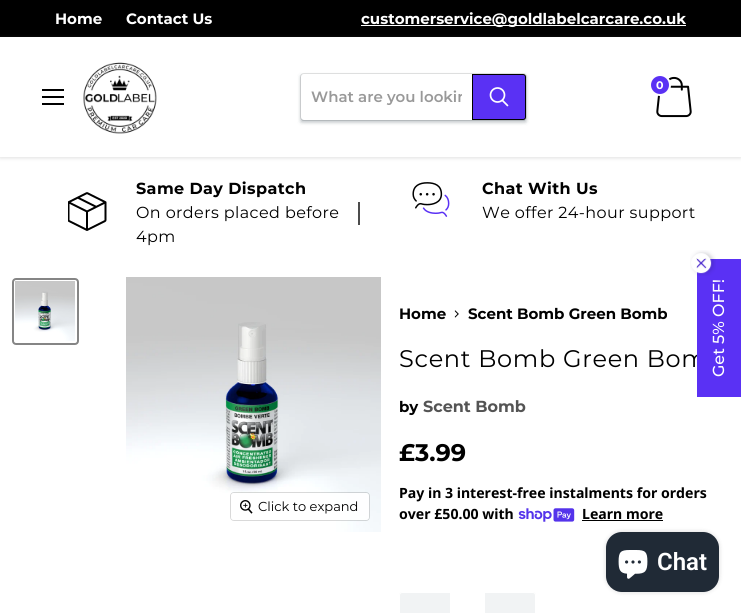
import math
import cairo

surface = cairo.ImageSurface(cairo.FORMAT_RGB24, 741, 613)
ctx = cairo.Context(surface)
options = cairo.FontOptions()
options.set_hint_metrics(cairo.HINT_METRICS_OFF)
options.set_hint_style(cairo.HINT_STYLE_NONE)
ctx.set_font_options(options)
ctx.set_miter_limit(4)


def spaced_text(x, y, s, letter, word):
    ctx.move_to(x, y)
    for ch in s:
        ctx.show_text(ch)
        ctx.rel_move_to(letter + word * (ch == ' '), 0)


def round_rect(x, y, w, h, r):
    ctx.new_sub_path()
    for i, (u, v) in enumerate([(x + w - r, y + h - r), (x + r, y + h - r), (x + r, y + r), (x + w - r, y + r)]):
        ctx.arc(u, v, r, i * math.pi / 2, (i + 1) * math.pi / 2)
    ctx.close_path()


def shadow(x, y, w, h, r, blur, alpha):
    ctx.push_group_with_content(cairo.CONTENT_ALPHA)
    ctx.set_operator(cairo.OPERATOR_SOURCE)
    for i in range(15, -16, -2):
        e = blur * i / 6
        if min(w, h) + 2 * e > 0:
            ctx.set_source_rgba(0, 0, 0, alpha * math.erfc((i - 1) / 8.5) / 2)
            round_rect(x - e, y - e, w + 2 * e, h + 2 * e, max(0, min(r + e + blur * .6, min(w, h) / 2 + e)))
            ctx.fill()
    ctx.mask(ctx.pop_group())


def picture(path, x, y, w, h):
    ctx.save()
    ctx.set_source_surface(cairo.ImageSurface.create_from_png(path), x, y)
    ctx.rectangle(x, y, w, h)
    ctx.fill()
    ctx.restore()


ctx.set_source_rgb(1, 1, 1)
ctx.paint()
ctx.set_source_rgb(0, 0, 0)
ctx.rectangle(0, 0, 741, 37)
ctx.fill()
ctx.select_font_face("Montserrat Thin")
ctx.set_font_size(15)
ctx.set_source_rgb(1, 1, 1)
ctx.move_to(55, 24)
ctx.show_text("Home")
ctx.move_to(126, 24)
ctx.show_text("Contact Us")
ctx.rectangle(361, 25, 325, 1)
ctx.fill()
ctx.move_to(361, 24)
ctx.show_text("customerservice@goldlabelcarcare.co.uk")
ctx.save()
ctx.set_fill_rule(cairo.FILL_RULE_EVEN_ODD)
ctx.new_path()
ctx.move_to(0, 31)
ctx.line_to(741, 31)
ctx.line_to(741, 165)
ctx.line_to(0, 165)
ctx.close_path()
ctx.move_to(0, 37)
ctx.line_to(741, 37)
ctx.line_to(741, 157)
ctx.line_to(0, 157)
ctx.close_path()
ctx.clip()
ctx.set_source_rgb(0.502, 0.502, 0.502)
shadow(0, 38, 741, 120, 0, 2, 0.25)
ctx.restore()
picture("img1.png", 656, 76, 36, 42)
ctx.set_source_rgb(0.353, 0.192, 0.957)
ctx.arc(660, 85, 10, 0, 2 * math.pi)
ctx.fill_preserve()
ctx.set_source_rgb(1, 1, 1)
ctx.stroke()
ctx.set_font_size(11)
ctx.move_to(656, 89)
ctx.show_text("0")
ctx.set_source_rgb(0, 0, 0)
ctx.rectangle(42, 89, 22, 2)
ctx.fill()
ctx.rectangle(42, 96, 22, 2)
ctx.fill()
ctx.rectangle(42, 103, 22, 2)
ctx.fill()
picture("img2.png", 83, 62, 74, 72)
ctx.set_source_rgb(0.502, 0.502, 0.502)
shadow(300, 75, 227, 48, 4, 1.5, 0.11)
round_rect(300.5, 73.5, 226, 47, 3.5)
ctx.set_source_rgba(0.502, 0.502, 0.502, 0.2)
ctx.set_line_width(1)
ctx.stroke()
ctx.set_source_rgb(0.031, 0.137, 0.188)
shadow(301, 76, 225, 46, 0, 2, 0.24)
ctx.set_source_rgb(1, 1, 1)
ctx.new_path()
ctx.move_to(304, 74)
ctx.line_to(472, 74)
ctx.line_to(472, 120)
ctx.line_to(304, 120)
ctx.curve_to(302.5, 120, 301, 118.5, 301, 117)
ctx.line_to(301, 77)
ctx.curve_to(301, 75.5, 302.5, 74, 304, 74)
ctx.close_path()
ctx.fill()
ctx.save()
ctx.rectangle(311, 87, 151, 19)
ctx.clip()
ctx.select_font_face("Montserrat SemiBold")
ctx.set_font_size(15)
ctx.set_source_rgb(0.6, 0.6, 0.6)
ctx.move_to(311, 102)
ctx.show_text("What are you lookin")
ctx.restore()
ctx.set_source_rgb(0.353, 0.192, 0.957)
ctx.new_path()
ctx.move_to(472.5, 74.5)
ctx.line_to(523, 74.5)
ctx.curve_to(524.5, 74.5, 525.5, 75.5, 525.5, 77)
ctx.line_to(525.5, 117)
ctx.curve_to(525.5, 118.5, 524.5, 119.5, 523, 119.5)
ctx.line_to(472.5, 119.5)
ctx.close_path()
ctx.fill_preserve()
ctx.set_source_rgb(0, 0, 0)
ctx.stroke()
ctx.new_path()
ctx.move_to(507.5, 105.5)
ctx.line_to(502.5, 100.5)
ctx.set_source_rgb(1, 1, 1)
ctx.set_line_width(1.7)
ctx.set_line_cap(cairo.LINE_CAP_ROUND)
ctx.stroke()
ctx.arc(497.5, 95, 7, 0, 2 * math.pi)
ctx.set_line_cap(cairo.LINE_CAP_BUTT)
ctx.stroke()
picture("img3.png", 68, 192, 39, 39)
ctx.set_font_size(16)
ctx.set_source_rgb(0, 0, 0)
spaced_text(136, 194, "Same Day Dispatch", 0.4, 0)
ctx.select_font_face("Montserrat")
spaced_text(136, 218, "On orders placed before", 0.4, 0)
spaced_text(136, 242, "4pm", 0.4, 0)
ctx.new_path()
ctx.move_to(359, 202)
ctx.line_to(359, 225)
ctx.set_line_width(1.4)
ctx.stroke()
picture("img4.png", 412, 182, 38, 35)
ctx.select_font_face("Montserrat Thin")
spaced_text(482, 194, "Chat With Us", 0.4, 0)
ctx.select_font_face("Montserrat")
spaced_text(482, 218, "We offer 24-hour support", 0.4, 0)
round_rect(13, 279, 65, 65, 3)
ctx.set_source_rgb(0.522, 0.522, 0.522)
ctx.set_line_width(2)
ctx.stroke()
picture("img5.png", 15, 281, 60, 60)
picture("img6.png", 126, 277, 255, 255)
round_rect(230.5, 492.5, 139, 28, 3.5)
ctx.set_source_rgba(0, 0, 0, 0.15)
ctx.set_line_width(1)
ctx.stroke()
ctx.set_source_rgba(1, 1, 1, 0.9)
round_rect(231, 493, 138, 27, 3)
ctx.fill()
picture("img7.png", 240, 500, 13, 14)
ctx.set_font_size(13)
ctx.set_source_rgb(0, 0, 0)
ctx.move_to(258, 511)
ctx.show_text("Click to expand")
ctx.select_font_face("Montserrat Thin")
ctx.set_font_size(15)
ctx.move_to(399, 319)
ctx.show_text("Home")
picture("img8.png", 454, 310, 5, 8)
ctx.move_to(468, 319)
ctx.show_text("Scent Bomb Green Bomb")
ctx.select_font_face("Montserrat")
ctx.set_font_size(24)
spaced_text(399, 367, "Scent Bomb Green Bom", 0.7, 0)
ctx.select_font_face("Montserrat Thin")
ctx.set_font_size(15)
ctx.move_to(399, 412)
ctx.show_text("by")
ctx.set_font_size(16)
ctx.set_source_rgb(0.329, 0.329, 0.329)
ctx.move_to(423, 412)
ctx.show_text("Scent Bomb")
ctx.set_font_size(24)
ctx.set_source_rgb(0, 0, 0)
ctx.move_to(399, 461)
ctx.show_text("£3.99")
ctx.select_font_face("Noto Sans", cairo.FONT_SLANT_NORMAL, cairo.FONT_WEIGHT_BOLD)
ctx.set_font_size(14.1)
ctx.move_to(399, 498)
ctx.show_text("Pay in 3 interest-free instalments for orders")
ctx.move_to(399, 519)
ctx.show_text("over £50.00 with")
picture("img9.png", 518, 508, 57, 14)
ctx.move_to(582, 519)
ctx.show_text("Learn more")
ctx.rectangle(582, 520, 81, 1)
ctx.fill()
ctx.set_source_rgb(0.945, 0.953, 0.957)
ctx.new_path()
ctx.move_to(402, 592)
ctx.line_to(450, 592)
ctx.line_to(450, 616)
ctx.line_to(402, 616)
ctx.curve_to(400.5, 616, 399, 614.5, 399, 613)
ctx.line_to(399, 595)
ctx.curve_to(399, 593.5, 400.5, 592, 402, 592)
ctx.close_path()
ctx.fill()
ctx.set_source_rgb(1, 1, 1)
ctx.set_fill_rule(cairo.FILL_RULE_EVEN_ODD)
ctx.new_path()
ctx.move_to(402, 592)
ctx.line_to(450, 592)
ctx.line_to(450, 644)
ctx.line_to(402, 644)
ctx.curve_to(400, 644, 399, 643, 399, 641)
ctx.line_to(399, 595)
ctx.curve_to(399, 593, 400, 592, 402, 592)
ctx.close_path()
ctx.move_to(402, 593)
ctx.line_to(450, 593)
ctx.line_to(450, 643)
ctx.line_to(402, 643)
ctx.curve_to(401, 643, 400, 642, 400, 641)
ctx.line_to(400, 595)
ctx.curve_to(400, 594, 401, 593, 402, 593)
ctx.close_path()
ctx.fill()
ctx.set_source_rgb(0.945, 0.953, 0.957)
ctx.new_path()
ctx.move_to(485, 592)
ctx.line_to(533, 592)
ctx.curve_to(534.5, 592, 536, 593.5, 536, 595)
ctx.line_to(536, 613)
ctx.curve_to(536, 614.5, 534.5, 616, 533, 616)
ctx.line_to(485, 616)
ctx.close_path()
ctx.fill()
ctx.set_source_rgb(1, 1, 1)
ctx.new_path()
ctx.move_to(485, 592)
ctx.line_to(533, 592)
ctx.curve_to(535, 592, 536, 593, 536, 595)
ctx.line_to(536, 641)
ctx.curve_to(536, 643, 535, 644, 533, 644)
ctx.line_to(485, 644)
ctx.close_path()
ctx.move_to(485, 593)
ctx.line_to(533, 593)
ctx.curve_to(534, 593, 535, 594, 535, 595)
ctx.line_to(535, 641)
ctx.curve_to(535, 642, 534, 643, 533, 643)
ctx.line_to(485, 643)
ctx.close_path()
ctx.fill()
ctx.set_source_rgb(0.353, 0.192, 0.957)
ctx.rectangle(697, 259, 44, 138)
ctx.fill()
picture("img10.png", 690, 250, 26, 26)
ctx.select_font_face("Montserrat Medium")
ctx.set_font_size(16)
ctx.set_source_rgb(1, 1, 1)
ctx.save()
ctx.translate(724, 377)
ctx.rotate(-90 * math.pi / 180)
ctx.move_to(0, 0)
ctx.show_text("Get 5% OFF!")
ctx.restore()
ctx.set_source_rgb(0, 0, 0)
shadow(606, 532, 113, 60, 16, 2.5, 0.15)
ctx.set_source_rgb(0.125, 0.165, 0.212)
round_rect(606, 532, 113, 60, 16)
ctx.fill()
picture("img11.png", 618, 550, 30, 29)
ctx.select_font_face("Roboto SemiBold")
ctx.set_font_size(24)
ctx.set_source_rgb(1, 1, 1)
ctx.move_to(657, 570)
ctx.show_text("Chat")
surface.write_to_png("page.png")
